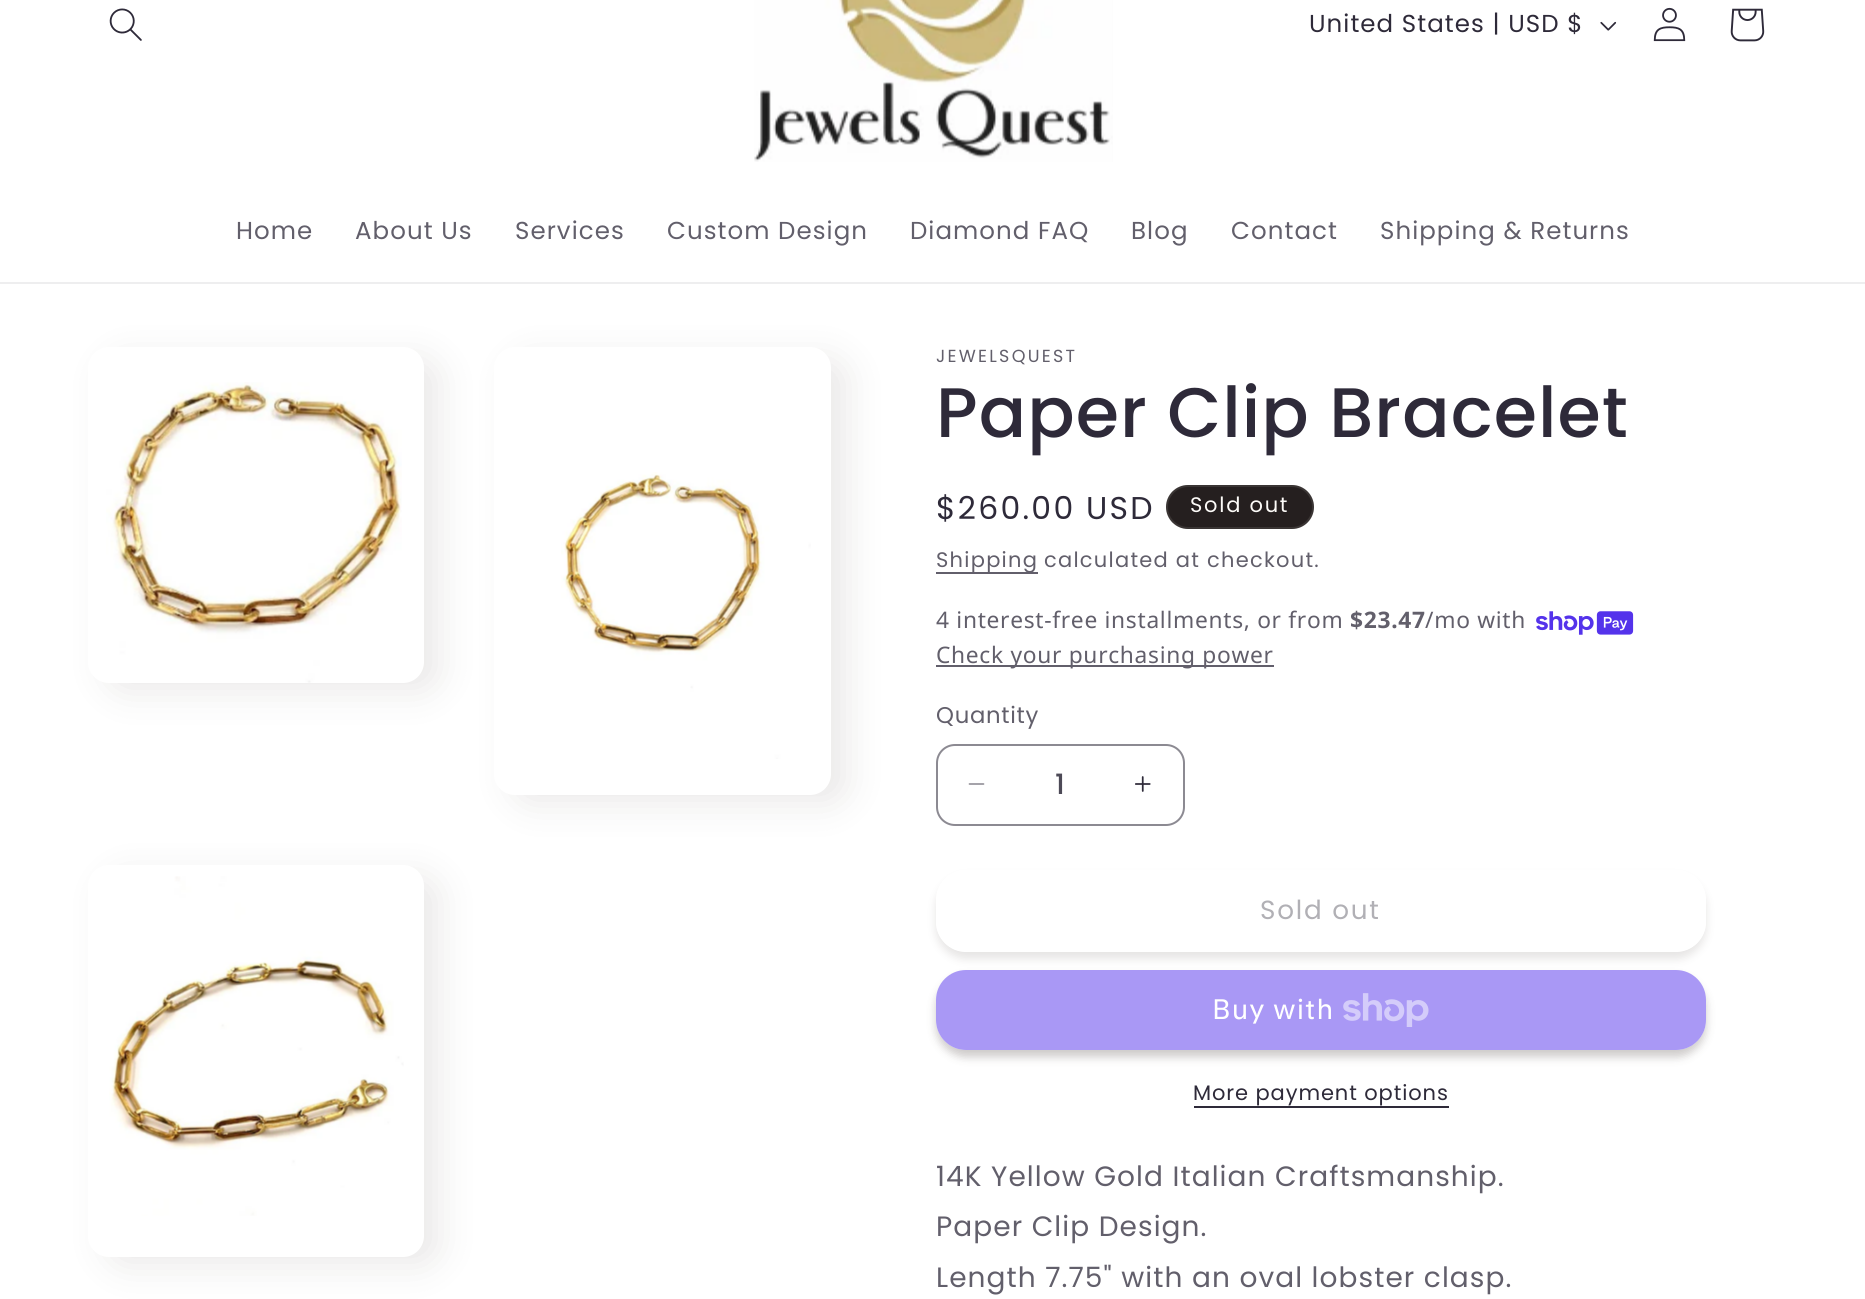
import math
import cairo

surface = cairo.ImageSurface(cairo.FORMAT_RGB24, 1865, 1299)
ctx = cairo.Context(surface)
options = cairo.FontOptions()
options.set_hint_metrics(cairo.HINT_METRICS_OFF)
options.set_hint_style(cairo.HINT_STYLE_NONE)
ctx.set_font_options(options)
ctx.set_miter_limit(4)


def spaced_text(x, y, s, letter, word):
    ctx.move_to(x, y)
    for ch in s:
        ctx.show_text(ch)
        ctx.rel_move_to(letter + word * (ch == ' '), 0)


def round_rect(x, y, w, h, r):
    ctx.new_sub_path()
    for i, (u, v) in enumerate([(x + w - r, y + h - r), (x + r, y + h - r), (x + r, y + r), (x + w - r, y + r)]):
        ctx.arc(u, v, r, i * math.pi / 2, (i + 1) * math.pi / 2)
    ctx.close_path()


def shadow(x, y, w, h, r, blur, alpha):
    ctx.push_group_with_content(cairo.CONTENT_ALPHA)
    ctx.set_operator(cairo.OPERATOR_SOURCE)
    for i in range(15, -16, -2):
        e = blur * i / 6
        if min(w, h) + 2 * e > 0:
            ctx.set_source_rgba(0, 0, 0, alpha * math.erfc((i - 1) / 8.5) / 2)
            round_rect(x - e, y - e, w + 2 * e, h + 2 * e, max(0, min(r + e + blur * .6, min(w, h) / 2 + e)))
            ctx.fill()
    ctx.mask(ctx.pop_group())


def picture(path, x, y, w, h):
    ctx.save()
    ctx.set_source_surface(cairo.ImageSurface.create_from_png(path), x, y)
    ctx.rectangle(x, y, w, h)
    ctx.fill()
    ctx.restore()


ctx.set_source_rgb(1, 1, 1)
ctx.paint()
ctx.set_source_rgb(0.933, 0.933, 0.937)
ctx.rectangle(0, 282, 1865, 2)
ctx.fill()
picture("img1.png", 109, 8, 33, 33)
picture("img2.png", 754, 0, 359, 162)
ctx.select_font_face("Poppins")
ctx.set_font_size(24.5)
ctx.set_source_rgb(0.18, 0.165, 0.224)
spaced_text(1309, 32, "United States | USD $", 1.05, 0)
picture("img3.png", 1600, 21, 17, 10)
picture("img4.png", 1653, 7, 33, 35)
picture("img5.png", 1730, 8, 35, 34)
ctx.set_source_rgb(0.384, 0.373, 0.42)
spaced_text(236, 239, "Home", 1.05, 0)
spaced_text(355, 239, "About Us", 1.05, 0)
spaced_text(515, 239, "Services", 1.05, 0)
spaced_text(667, 239, "Custom Design", 1.05, 0)
spaced_text(910, 239, "Diamond FAQ", 1.05, 0)
spaced_text(1131, 239, "Blog", 1.05, 0)
spaced_text(1231, 239, "Contact", 1.05, 0)
spaced_text(1380, 239, "Shipping & Returns", 1.05, 0)
ctx.set_source_rgb(0.224, 0.18, 0.165)
shadow(105, 357, 336, 336, 21, 17.5, 0.1)
ctx.set_source_rgb(1, 1, 1)
round_rect(88, 347, 336, 336, 21)
ctx.fill()
picture("img6.png", 106, 382, 296, 301)
ctx.set_source_rgb(0.224, 0.18, 0.165)
shadow(511, 357, 338, 448, 21, 17.5, 0.1)
ctx.set_source_rgb(1, 1, 1)
round_rect(494, 347, 337, 448, 21)
ctx.fill()
picture("img7.png", 561, 472, 250, 287)
ctx.set_source_rgb(0.224, 0.18, 0.165)
shadow(105, 875, 336, 392, 21, 17.5, 0.1)
ctx.set_source_rgb(1, 1, 1)
round_rect(88, 865, 336, 392, 21)
ctx.fill()
picture("img8.png", 109, 876, 295, 340)
ctx.set_font_size(17.5)
ctx.set_source_rgb(0.384, 0.373, 0.42)
spaced_text(936, 362, "JEWELSQUEST", 2.25, 0)
ctx.select_font_face("Poppins Medium")
ctx.set_font_size(70)
ctx.set_source_rgb(0.18, 0.165, 0.224)
spaced_text(936, 437, "Paper Clip Bracelet", 1.05, 0)
ctx.select_font_face("Poppins")
ctx.set_font_size(31.5)
spaced_text(936, 519, "$260.00 USD", 2.25, 0)
ctx.set_source_rgb(0.145, 0.122, 0.122)
round_rect(1166, 485, 148, 44, 22)
ctx.fill()
round_rect(1167, 486, 146, 42, 21)
ctx.set_source_rgba(0.992, 0.984, 0.969, 0.1)
ctx.stroke()
ctx.set_font_size(21)
ctx.set_source_rgb(0.992, 0.984, 0.969)
spaced_text(1190, 512, "Sold out", 1.75, 0)
ctx.set_source_rgb(0.384, 0.373, 0.42)
ctx.rectangle(936, 572, 102, 2)
ctx.fill()
spaced_text(936, 567, "Shipping", 1.25, 0)
spaced_text(1044, 567, "calculated at checkout.", 1.25, 0)
ctx.select_font_face("Noto Sans")
ctx.set_font_size(22.75)
spaced_text(936, 628, "4 interest-free installments, or from", 0.7, 0)
ctx.select_font_face("Noto Sans", cairo.FONT_SLANT_NORMAL, cairo.FONT_WEIGHT_BOLD)
spaced_text(1350, 628, "$23.47", 0.7, 0)
ctx.select_font_face("Noto Sans")
spaced_text(1425, 628, "/mo with", 0.7, 0)
picture("img9.png", 1536, 611, 98, 24)
ctx.rectangle(936, 665, 338, 2)
ctx.fill()
spaced_text(936, 663, "Check your purchasing power", 0.7, 0)
ctx.select_font_face("Poppins")
spaced_text(936, 723, "Quantity", 0.7, 0)
picture("img10.png", 968, 783, 17, 2)
picture("img11.png", 1135, 776, 16, 16)
round_rect(937, 745, 247, 80, 18)
ctx.set_source_rgb(0.549, 0.541, 0.573)
ctx.stroke()
ctx.select_font_face("Poppins Medium")
ctx.set_font_size(28)
ctx.set_source_rgb(0.302, 0.29, 0.341)
ctx.move_to(1055, 794)
ctx.show_text("1")
ctx.save()
ctx.set_fill_rule(cairo.FILL_RULE_EVEN_ODD)
ctx.new_path()
ctx.move_to(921, 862)
ctx.line_to(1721, 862)
ctx.line_to(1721, 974)
ctx.line_to(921, 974)
ctx.close_path()
ctx.move_to(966, 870)
ctx.line_to(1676, 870)
ctx.curve_to(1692.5, 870, 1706, 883.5, 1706, 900)
ctx.line_to(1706, 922)
ctx.curve_to(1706, 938.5, 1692.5, 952, 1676, 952)
ctx.line_to(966, 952)
ctx.curve_to(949.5, 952, 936, 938.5, 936, 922)
ctx.line_to(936, 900)
ctx.curve_to(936, 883.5, 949.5, 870, 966, 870)
ctx.close_path()
ctx.clip()
ctx.set_source_rgb(0.612, 0.588, 0.58)
shadow(936, 877, 770, 82, 30, 4.5, 0.25)
ctx.restore()
ctx.select_font_face("Poppins")
ctx.set_font_size(26.25)
ctx.set_source_rgb(0.694, 0.69, 0.71)
spaced_text(1260, 919, "Sold out", 1.75, 0)
ctx.save()
ctx.set_fill_rule(cairo.FILL_RULE_EVEN_ODD)
ctx.new_path()
ctx.move_to(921, 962)
ctx.line_to(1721, 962)
ctx.line_to(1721, 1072)
ctx.line_to(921, 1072)
ctx.close_path()
ctx.move_to(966, 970)
ctx.line_to(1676, 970)
ctx.curve_to(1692.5, 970, 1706, 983.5, 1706, 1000)
ctx.line_to(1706, 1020)
ctx.curve_to(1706, 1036.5, 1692.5, 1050, 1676, 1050)
ctx.line_to(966, 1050)
ctx.curve_to(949.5, 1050, 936, 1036.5, 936, 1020)
ctx.line_to(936, 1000)
ctx.curve_to(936, 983.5, 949.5, 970, 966, 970)
ctx.close_path()
ctx.clip()
ctx.set_source_rgb(0.224, 0.18, 0.165)
shadow(936, 977, 770, 80, 30, 4.5, 0.25)
ctx.restore()
ctx.set_source_rgba(0.329, 0.2, 0.922, 0.5)
round_rect(936, 970, 770, 80, 30)
ctx.fill()
ctx.select_font_face("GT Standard")
ctx.set_font_size(28)
ctx.set_source_rgb(1, 1, 1)
spaced_text(1212, 1019, "Buy with", 1.05, 0)
picture("img12.png", 1343, 993, 86, 34)
ctx.select_font_face("Poppins")
ctx.set_font_size(21)
ctx.set_source_rgb(0.18, 0.165, 0.224)
spaced_text(1193, 1100, "More payment options", 0.9, 0)
ctx.rectangle(1194, 1106, 255, 2)
ctx.fill()
ctx.set_font_size(28)
ctx.set_source_rgb(0.384, 0.373, 0.42)
spaced_text(936, 1186, "14K Yellow Gold Italian Craftsmanship.", 1.05, 0)
spaced_text(936, 1236, "Paper Clip Design.", 1.05, 0)
spaced_text(936, 1287, "Length 7.75\" with an oval lobster clasp.", 1.05, 0)
surface.write_to_png("page.png")
